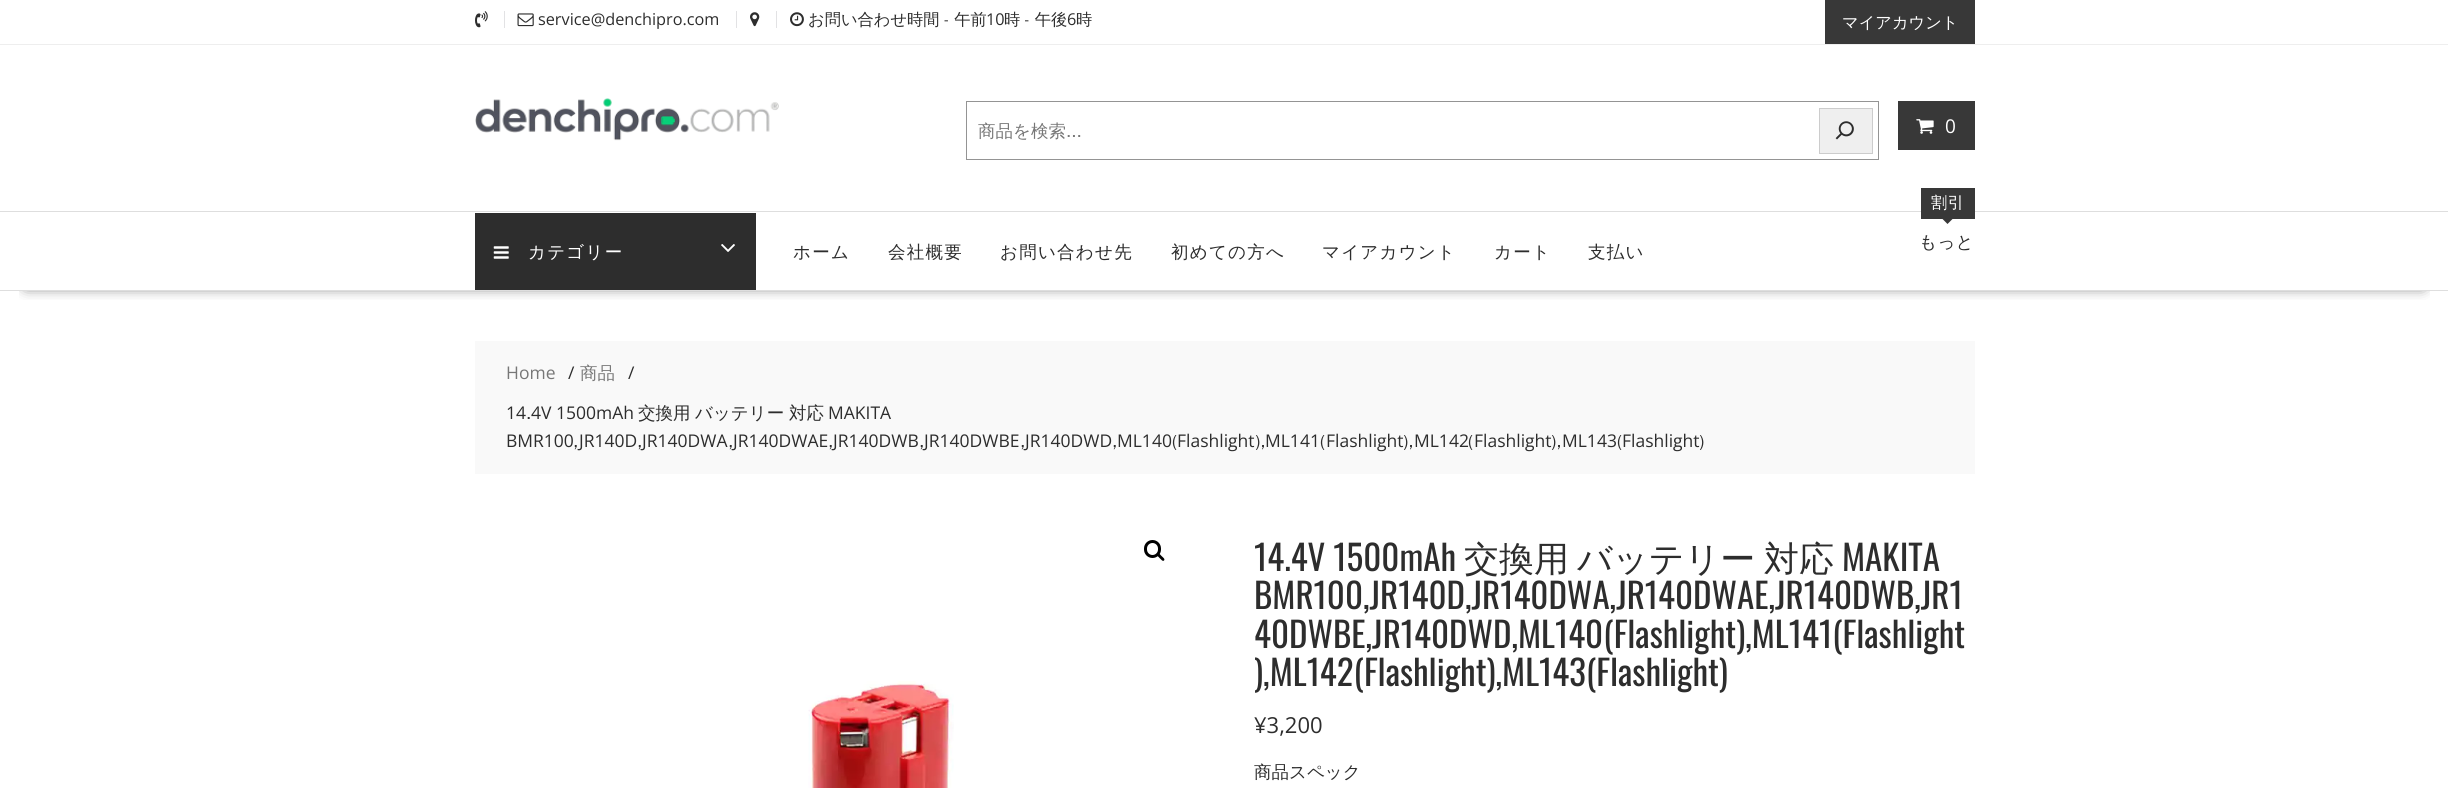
import math
import cairo

surface = cairo.ImageSurface(cairo.FORMAT_RGB24, 2448, 788)
ctx = cairo.Context(surface)
options = cairo.FontOptions()
options.set_hint_metrics(cairo.HINT_METRICS_OFF)
options.set_hint_style(cairo.HINT_STYLE_NONE)
ctx.set_font_options(options)
ctx.set_miter_limit(4)


def spaced_text(x, y, s, letter, word):
    ctx.move_to(x, y)
    for ch in s:
        ctx.show_text(ch)
        ctx.rel_move_to(letter + word * (ch == ' '), 0)


def round_rect(x, y, w, h, r):
    ctx.new_sub_path()
    for i, (u, v) in enumerate([(x + w - r, y + h - r), (x + r, y + h - r), (x + r, y + r), (x + w - r, y + r)]):
        ctx.arc(u, v, r, i * math.pi / 2, (i + 1) * math.pi / 2)
    ctx.close_path()


def shadow(x, y, w, h, r, blur, alpha):
    ctx.push_group_with_content(cairo.CONTENT_ALPHA)
    ctx.set_operator(cairo.OPERATOR_SOURCE)
    for i in range(15, -16, -2):
        e = blur * i / 6
        if min(w, h) + 2 * e > 0:
            ctx.set_source_rgba(0, 0, 0, alpha * math.erfc((i - 1) / 8.5) / 2)
            round_rect(x - e, y - e, w + 2 * e, h + 2 * e, max(0, min(r + e + blur * .6, min(w, h) / 2 + e)))
            ctx.fill()
    ctx.mask(ctx.pop_group())


def picture(path, x, y, w, h):
    ctx.save()
    ctx.set_source_surface(cairo.ImageSurface.create_from_png(path), x, y)
    ctx.rectangle(x, y, w, h)
    ctx.fill()
    ctx.restore()


ctx.set_source_rgb(1, 1, 1)
ctx.paint()
ctx.set_source_rgb(0.933, 0.933, 0.933)
ctx.rectangle(0, 44, 2448, 1)
ctx.fill()
picture("img1.png", 475, 11, 13, 17)
ctx.set_source_rgb(0.886, 0.886, 0.894)
ctx.rectangle(504, 11, 1, 17)
ctx.fill()
picture("img2.png", 517, 13, 17, 14)
ctx.select_font_face("Open Sans")
ctx.set_font_size(16.25)
ctx.set_source_rgb(0.176, 0.176, 0.176)
ctx.move_to(538, 25)
ctx.show_text("service@denchipro.com")
ctx.set_source_rgb(0.886, 0.886, 0.894)
ctx.rectangle(736, 11, 1, 17)
ctx.fill()
picture("img3.png", 750, 12, 10, 15)
ctx.rectangle(776, 11, 1, 17)
ctx.fill()
picture("img4.png", 790, 12, 14, 15)
ctx.select_font_face("WenQuanYi Zen Hei Medium")
ctx.set_source_rgb(0.176, 0.176, 0.176)
ctx.move_to(808, 25)
ctx.show_text("お問い合わせ時間 - 午前")
ctx.select_font_face("Open Sans")
ctx.move_to(986, 25)
ctx.show_text("10")
ctx.select_font_face("WenQuanYi Zen Hei Medium")
ctx.move_to(1004, 25)
ctx.show_text("時 - 午後")
ctx.select_font_face("Open Sans")
ctx.move_to(1067, 25)
ctx.show_text("6")
ctx.select_font_face("WenQuanYi Zen Hei Medium")
ctx.move_to(1076, 25)
ctx.show_text("時")
ctx.set_source_rgb(0.22, 0.22, 0.22)
ctx.rectangle(1825, 0, 150, 44)
ctx.fill()
ctx.set_source_rgb(1, 1, 1)
ctx.move_to(1842, 28)
ctx.show_text("マイアカウント")
picture("img5.png", 475, 98, 304, 43)
ctx.rectangle(966.5, 101.5, 912, 58)
ctx.set_source_rgb(0.58, 0.58, 0.58)
ctx.set_line_width(1)
ctx.stroke()
ctx.set_font_size(17.5)
ctx.set_source_rgb(0.467, 0.467, 0.467)
ctx.move_to(978, 137)
ctx.show_text("商品を検索...")
ctx.set_source_rgb(0.937, 0.937, 0.937)
ctx.rectangle(1819.5, 108.5, 53, 45)
ctx.fill_preserve()
ctx.set_source_rgb(0.8, 0.8, 0.8)
ctx.stroke()
picture("img6.png", 1835, 121, 19, 19)
ctx.set_source_rgb(0.22, 0.22, 0.22)
ctx.rectangle(1898, 101, 77, 49)
ctx.fill()
picture("img7.png", 1916, 119, 18, 15)
ctx.select_font_face("Open Sans")
ctx.set_font_size(19)
ctx.set_source_rgb(1, 1, 1)
ctx.move_to(1945, 133)
ctx.show_text("0")
ctx.save()
ctx.rectangle(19, 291, 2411, 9)
ctx.clip()
ctx.set_source_rgb(0, 0, 0)
shadow(26, 259, 2397, 27, 0, 7, 0.75)
ctx.restore()
ctx.set_source_rgb(0.871, 0.871, 0.871)
ctx.rectangle(0, 211, 2448, 1)
ctx.fill()
ctx.rectangle(0, 290, 2448, 1)
ctx.fill()
ctx.set_source_rgb(0.176, 0.176, 0.176)
ctx.rectangle(475, 213, 281, 77)
ctx.fill()
picture("img8.png", 493, 246, 16, 13)
ctx.select_font_face("WenQuanYi Zen Hei Medium")
ctx.set_font_size(17.5)
ctx.set_source_rgb(1, 1, 1)
spaced_text(528, 258, "カテゴリー", 1.25, 0)
picture("img9.png", 721, 244, 14, 8)
ctx.set_source_rgb(0.176, 0.176, 0.176)
spaced_text(793, 258, "ホーム", 1.25, 0)
spaced_text(888, 258, "会社概要", 1.25, 0)
spaced_text(1000, 258, "お問い合わせ先", 1.25, 0)
spaced_text(1171, 258, "初めての方へ", 1.25, 0)
spaced_text(1322, 258, "マイアカウント", 1.25, 0)
spaced_text(1494, 258, "カート", 1.25, 0)
spaced_text(1588, 258, "支払い", 1.25, 0)
ctx.set_source_rgb(0.22, 0.22, 0.22)
ctx.rectangle(1921, 188, 54, 31)
ctx.fill()
ctx.set_font_size(16.25)
ctx.set_source_rgb(1, 1, 1)
spaced_text(1931, 208, "割引", 0.5, 0)
ctx.set_source_rgb(0.22, 0.22, 0.22)
ctx.new_path()
ctx.move_to(1941, 217.5)
ctx.line_to(1954, 217.5)
ctx.line_to(1947.5, 224)
ctx.close_path()
ctx.fill()
ctx.set_font_size(17.5)
ctx.set_source_rgb(0.176, 0.176, 0.176)
spaced_text(1919, 248, "もっと", 0.5, 0)
ctx.set_source_rgb(0.973, 0.973, 0.973)
ctx.rectangle(475, 341, 1500, 133)
ctx.fill()
ctx.select_font_face("Open Sans")
ctx.set_source_rgb(0.467, 0.467, 0.467)
ctx.move_to(506, 379)
ctx.show_text("Home")
ctx.set_source_rgb(0.176, 0.176, 0.176)
ctx.move_to(568, 379)
ctx.show_text("/")
ctx.select_font_face("WenQuanYi Zen Hei Medium")
ctx.set_source_rgb(0.467, 0.467, 0.467)
ctx.move_to(580, 379)
ctx.show_text("商品")
ctx.select_font_face("Open Sans")
ctx.set_source_rgb(0.176, 0.176, 0.176)
ctx.move_to(628, 379)
ctx.show_text("/")
ctx.move_to(506, 419)
ctx.show_text("14")
ctx.select_font_face("WenQuanYi Zen Hei Medium")
ctx.move_to(526, 419)
ctx.show_text(".")
ctx.select_font_face("Open Sans")
ctx.move_to(531, 419)
ctx.show_text("4V 1500mAh")
ctx.select_font_face("WenQuanYi Zen Hei Medium")
ctx.move_to(638, 419)
ctx.show_text("交換用")
ctx.move_to(695, 419)
ctx.show_text("バッテリー")
ctx.move_to(789, 419)
ctx.show_text("対応")
ctx.select_font_face("Open Sans")
ctx.move_to(828, 419)
ctx.show_text("MAKITA")
ctx.move_to(506, 447)
ctx.show_text("BMR100")
ctx.select_font_face("WenQuanYi Zen Hei Medium")
ctx.move_to(573, 447)
ctx.show_text(",")
ctx.select_font_face("Open Sans")
ctx.move_to(579, 447)
ctx.show_text("JR140D")
ctx.select_font_face("WenQuanYi Zen Hei Medium")
ctx.move_to(637, 447)
ctx.show_text(",")
ctx.select_font_face("Open Sans")
ctx.move_to(642, 447)
ctx.show_text("JR140DWA")
ctx.select_font_face("WenQuanYi Zen Hei Medium")
ctx.move_to(728, 447)
ctx.show_text(",")
ctx.select_font_face("Open Sans")
ctx.move_to(733, 447)
ctx.show_text("JR140DWAE")
ctx.select_font_face("WenQuanYi Zen Hei Medium")
ctx.move_to(828, 447)
ctx.show_text(",")
ctx.select_font_face("Open Sans")
ctx.move_to(833, 447)
ctx.show_text("JR140DWB")
ctx.select_font_face("WenQuanYi Zen Hei Medium")
ctx.move_to(919, 447)
ctx.show_text(",")
ctx.select_font_face("Open Sans")
ctx.move_to(924, 447)
ctx.show_text("JR140DWBE")
ctx.select_font_face("WenQuanYi Zen Hei Medium")
ctx.move_to(1020, 447)
ctx.show_text(",")
ctx.select_font_face("Open Sans")
ctx.move_to(1025, 447)
ctx.show_text("JR140DWD")
ctx.select_font_face("WenQuanYi Zen Hei Medium")
ctx.move_to(1112, 447)
ctx.show_text(",")
ctx.select_font_face("Open Sans")
ctx.move_to(1117, 447)
ctx.show_text("ML140")
ctx.select_font_face("WenQuanYi Zen Hei Medium")
ctx.move_to(1172, 447)
ctx.show_text("(")
ctx.select_font_face("Open Sans")
ctx.move_to(1177, 447)
ctx.show_text("Flashlight")
ctx.select_font_face("WenQuanYi Zen Hei Medium")
ctx.move_to(1255, 447)
ctx.show_text("),")
ctx.select_font_face("Open Sans")
ctx.move_to(1265, 447)
ctx.show_text("ML141")
ctx.select_font_face("WenQuanYi Zen Hei Medium")
ctx.move_to(1320, 447)
ctx.show_text("(")
ctx.select_font_face("Open Sans")
ctx.move_to(1326, 447)
ctx.show_text("Flashlight")
ctx.select_font_face("WenQuanYi Zen Hei Medium")
ctx.move_to(1403, 447)
ctx.show_text("),")
ctx.select_font_face("Open Sans")
ctx.move_to(1414, 447)
ctx.show_text("ML142")
ctx.select_font_face("WenQuanYi Zen Hei Medium")
ctx.move_to(1468, 447)
ctx.show_text("(")
ctx.select_font_face("Open Sans")
ctx.move_to(1474, 447)
ctx.show_text("Flashlight")
ctx.select_font_face("WenQuanYi Zen Hei Medium")
ctx.move_to(1551, 447)
ctx.show_text("),")
ctx.select_font_face("Open Sans")
ctx.move_to(1562, 447)
ctx.show_text("ML143")
ctx.select_font_face("WenQuanYi Zen Hei Medium")
ctx.move_to(1617, 447)
ctx.show_text("(")
ctx.select_font_face("Open Sans")
ctx.move_to(1622, 447)
ctx.show_text("Flashlight")
ctx.select_font_face("WenQuanYi Zen Hei Medium")
ctx.move_to(1699, 447)
ctx.show_text(")")
round_rect(1145.5, 541.5, 14, 15, 7)
ctx.set_source_rgb(0, 0, 0)
ctx.set_line_width(3)
ctx.stroke()
ctx.new_path()
ctx.move_to(1157, 553.5)
ctx.curve_to(1158.5, 552, 1160.5, 555, 1161.5, 556)
ctx.curve_to(1162.5, 557, 1165.5, 559, 1164, 560.5)
ctx.curve_to(1162.5, 562, 1160.5, 558.5, 1159.5, 558)
ctx.curve_to(1159, 557, 1155.5, 555, 1157, 553.5)
ctx.close_path()
ctx.fill()
picture("img10.png", 808, 681, 146, 107)
ctx.select_font_face("Oswald")
ctx.set_font_size(35)
ctx.set_source_rgb(0.176, 0.176, 0.176)
ctx.move_to(1254, 571)
ctx.show_text("14.4V 1500mAh")
ctx.select_font_face("WenQuanYi Zen Hei Medium")
ctx.move_to(1464, 571)
ctx.show_text("交換用")
ctx.move_to(1577, 571)
ctx.show_text("バッテリー")
ctx.move_to(1764, 571)
ctx.show_text("対応")
ctx.select_font_face("Oswald")
ctx.move_to(1842, 571)
ctx.show_text("MAKITA")
ctx.move_to(1254, 609)
ctx.show_text("BMR100,JR140D,JR140DWA,JR140DWAE,JR140DWB,JR1")
ctx.move_to(1254, 648)
ctx.show_text("40DWBE,JR140DWD,ML140(Flashlight),ML141(Flashlight")
ctx.move_to(1254, 686)
ctx.show_text("),ML142(Flashlight),ML143(Flashlight)")
ctx.select_font_face("Open Sans")
ctx.set_font_size(22)
ctx.move_to(1254, 733)
ctx.show_text("¥3,200")
ctx.select_font_face("WenQuanYi Zen Hei Medium")
ctx.set_font_size(17.5)
ctx.move_to(1254, 778)
ctx.show_text("商品スペック")
surface.write_to_png("page.png")
